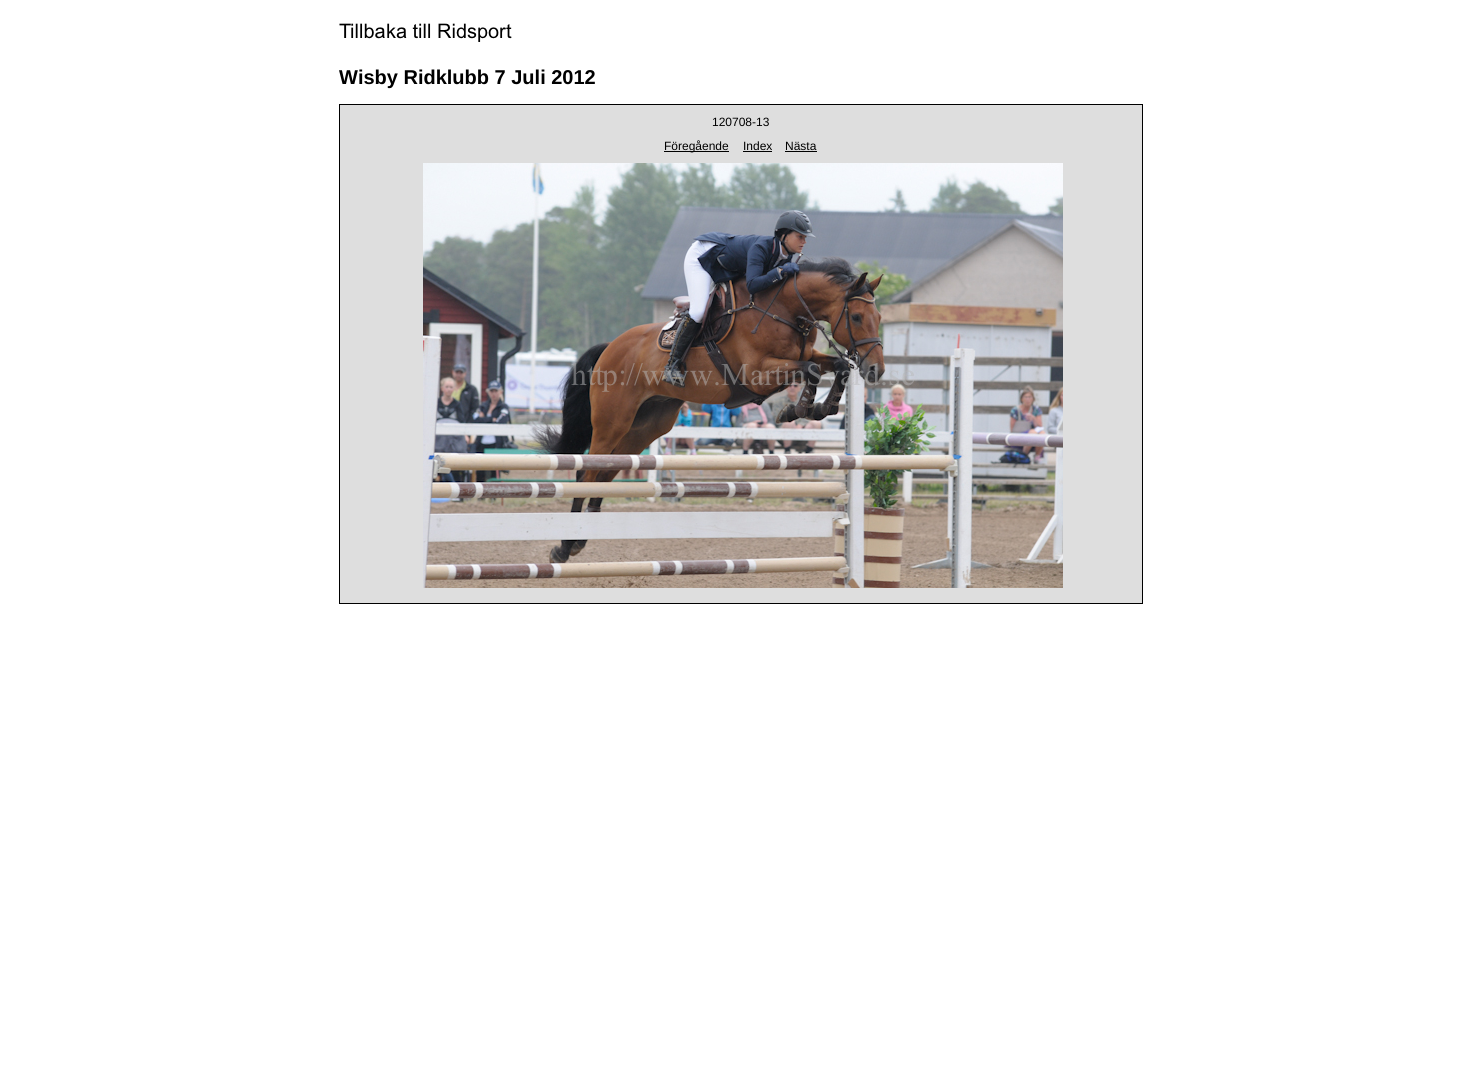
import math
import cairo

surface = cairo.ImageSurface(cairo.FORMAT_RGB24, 1483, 1066)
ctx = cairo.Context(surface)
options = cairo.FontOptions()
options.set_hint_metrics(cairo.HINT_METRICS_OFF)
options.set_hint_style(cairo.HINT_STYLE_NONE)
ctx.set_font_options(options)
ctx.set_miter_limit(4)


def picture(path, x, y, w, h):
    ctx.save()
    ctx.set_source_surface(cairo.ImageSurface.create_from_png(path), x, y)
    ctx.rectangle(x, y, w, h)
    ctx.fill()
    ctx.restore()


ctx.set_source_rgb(1, 1, 1)
ctx.paint()
picture("img1.png", 339, 23, 173, 19)
ctx.select_font_face("Liberation Sans", cairo.FONT_SLANT_NORMAL, cairo.FONT_WEIGHT_BOLD)
ctx.set_font_size(20)
ctx.set_source_rgb(0, 0, 0)
ctx.move_to(339, 84)
ctx.show_text("Wisby Ridklubb 7 Juli 2012")
ctx.set_source_rgb(0.871, 0.871, 0.871)
ctx.rectangle(339.5, 104.5, 803, 499)
ctx.fill_preserve()
ctx.set_source_rgb(0, 0, 0)
ctx.set_line_width(1)
ctx.stroke()
ctx.select_font_face("Liberation Sans")
ctx.set_font_size(12)
ctx.move_to(712, 126)
ctx.show_text("120708-13")
ctx.rectangle(664, 151, 65, 1)
ctx.fill()
ctx.move_to(664, 150)
ctx.show_text("Föregående")
ctx.move_to(743, 150)
ctx.show_text("Index")
ctx.rectangle(743, 151, 29, 1)
ctx.fill()
ctx.move_to(785, 150)
ctx.show_text("Nästa")
ctx.rectangle(785, 151, 32, 1)
ctx.fill()
picture("img2.png", 423, 163, 640, 425)
surface.write_to_png("page.png")
